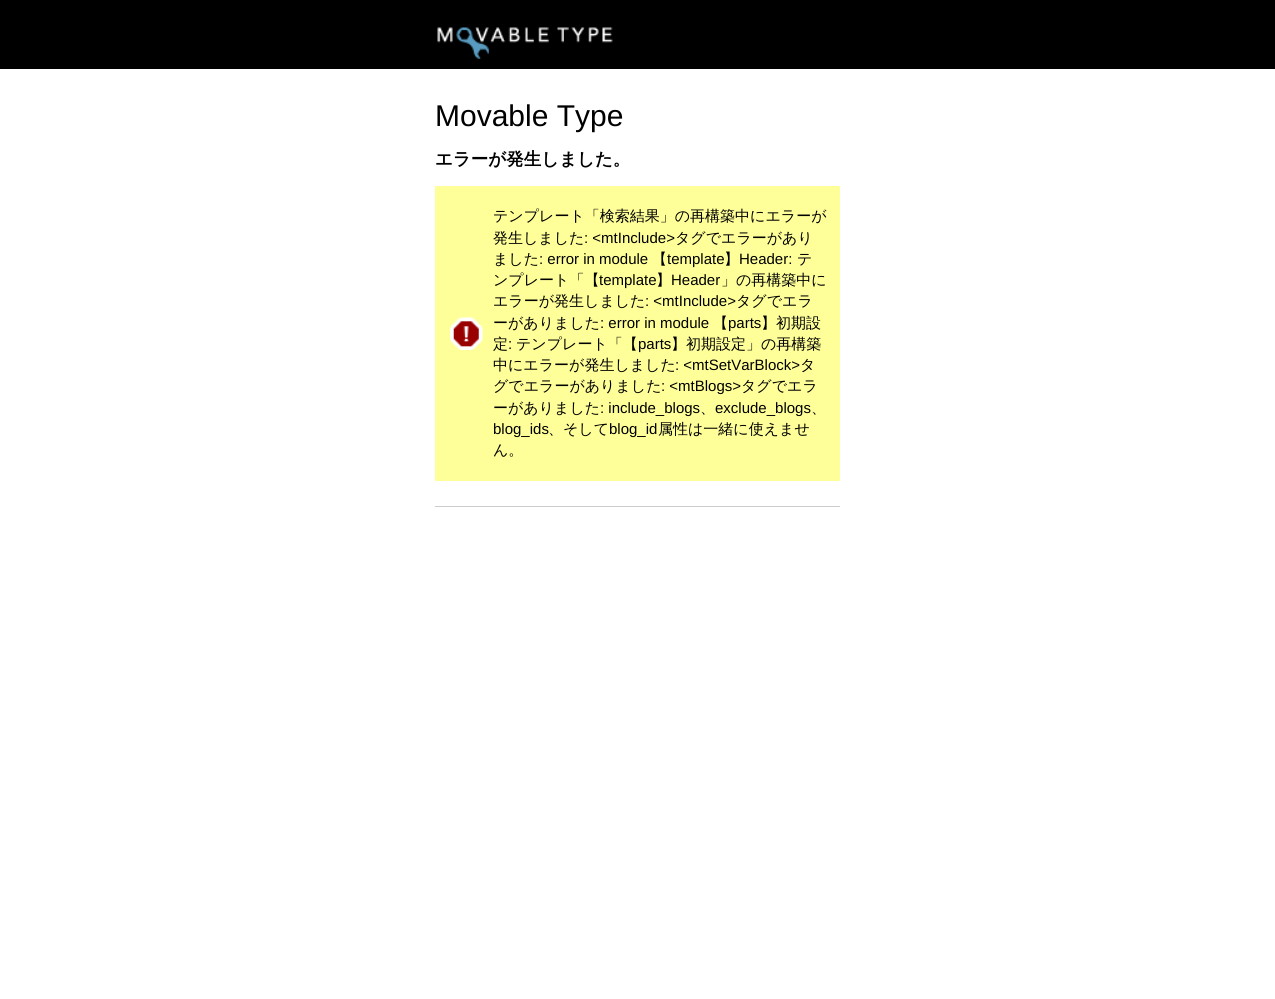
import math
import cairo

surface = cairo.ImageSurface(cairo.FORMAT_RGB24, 1275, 999)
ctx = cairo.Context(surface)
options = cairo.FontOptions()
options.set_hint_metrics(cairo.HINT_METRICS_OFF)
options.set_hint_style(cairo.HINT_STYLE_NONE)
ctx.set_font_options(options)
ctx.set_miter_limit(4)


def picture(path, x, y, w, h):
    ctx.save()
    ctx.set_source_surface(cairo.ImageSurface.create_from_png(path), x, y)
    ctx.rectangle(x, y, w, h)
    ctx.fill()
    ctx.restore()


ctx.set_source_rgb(1, 1, 1)
ctx.paint()
ctx.set_source_rgb(0, 0, 0)
ctx.rectangle(0, 0, 1275, 69)
ctx.fill()
picture("img1.png", 437, 27, 176, 32)
ctx.select_font_face("Liberation Sans")
ctx.set_font_size(30)
ctx.move_to(435, 126)
ctx.show_text("Movable Type")
ctx.select_font_face("WenQuanYi Zen Hei", cairo.FONT_SLANT_NORMAL, cairo.FONT_WEIGHT_BOLD)
ctx.set_font_size(17.5)
ctx.move_to(435, 165)
ctx.show_text("エラーが発生しました。")
ctx.set_source_rgb(1, 1, 0.6)
ctx.rectangle(435, 186, 405, 295)
ctx.fill()
picture("img2.png", 450, 317, 33, 33)
ctx.select_font_face("WenQuanYi Zen Hei Medium")
ctx.set_font_size(15)
ctx.set_source_rgb(0, 0, 0)
ctx.move_to(493, 221)
ctx.show_text("テンプレート「検索結果」の再構築中にエラーが")
ctx.move_to(493, 243)
ctx.show_text("発生しました")
ctx.select_font_face("Liberation Sans")
ctx.move_to(584, 243)
ctx.show_text(": <mtInclude>")
ctx.select_font_face("WenQuanYi Zen Hei Medium")
ctx.move_to(675, 243)
ctx.show_text("タグでエラーがあり")
ctx.move_to(493, 264)
ctx.show_text("ました")
ctx.select_font_face("Liberation Sans")
ctx.move_to(539, 264)
ctx.show_text(": error in module")
ctx.select_font_face("WenQuanYi Zen Hei Medium")
ctx.move_to(652, 264)
ctx.show_text("【")
ctx.select_font_face("Liberation Sans")
ctx.move_to(667, 264)
ctx.show_text("template")
ctx.select_font_face("WenQuanYi Zen Hei Medium")
ctx.move_to(724, 264)
ctx.show_text("】")
ctx.select_font_face("Liberation Sans")
ctx.move_to(739, 264)
ctx.show_text("Header:")
ctx.select_font_face("WenQuanYi Zen Hei Medium")
ctx.move_to(797, 264)
ctx.show_text("テ")
ctx.move_to(493, 285)
ctx.show_text("ンプレート「【")
ctx.select_font_face("Liberation Sans")
ctx.move_to(599, 285)
ctx.show_text("template")
ctx.select_font_face("WenQuanYi Zen Hei Medium")
ctx.move_to(656, 285)
ctx.show_text("】")
ctx.select_font_face("Liberation Sans")
ctx.move_to(671, 285)
ctx.show_text("Header")
ctx.select_font_face("WenQuanYi Zen Hei Medium")
ctx.move_to(721, 285)
ctx.show_text("」の再構築中に")
ctx.move_to(493, 306)
ctx.show_text("エラーが発生しました")
ctx.select_font_face("Liberation Sans")
ctx.move_to(645, 306)
ctx.show_text(": <mtInclude>")
ctx.select_font_face("WenQuanYi Zen Hei Medium")
ctx.move_to(736, 306)
ctx.show_text("タグでエラ")
ctx.move_to(493, 328)
ctx.show_text("ーがありました")
ctx.select_font_face("Liberation Sans")
ctx.move_to(600, 328)
ctx.show_text(": error in module")
ctx.select_font_face("WenQuanYi Zen Hei Medium")
ctx.move_to(713, 328)
ctx.show_text("【")
ctx.select_font_face("Liberation Sans")
ctx.move_to(728, 328)
ctx.show_text("parts")
ctx.select_font_face("WenQuanYi Zen Hei Medium")
ctx.move_to(761, 328)
ctx.show_text("】初期設")
ctx.move_to(493, 349)
ctx.show_text("定")
ctx.select_font_face("Liberation Sans")
ctx.move_to(508, 349)
ctx.show_text(":")
ctx.select_font_face("WenQuanYi Zen Hei Medium")
ctx.move_to(516, 349)
ctx.show_text("テンプレート「【")
ctx.select_font_face("Liberation Sans")
ctx.move_to(638, 349)
ctx.show_text("parts")
ctx.select_font_face("WenQuanYi Zen Hei Medium")
ctx.move_to(671, 349)
ctx.show_text("】初期設定」の再構築")
ctx.move_to(493, 370)
ctx.show_text("中にエラーが発生しました")
ctx.select_font_face("Liberation Sans")
ctx.move_to(675, 370)
ctx.show_text(": <mtSetVarBlock>")
ctx.select_font_face("WenQuanYi Zen Hei Medium")
ctx.move_to(800, 370)
ctx.show_text("タ")
ctx.move_to(493, 391)
ctx.show_text("グでエラーがありました")
ctx.select_font_face("Liberation Sans")
ctx.move_to(661, 391)
ctx.show_text(": <mtBlogs>")
ctx.select_font_face("WenQuanYi Zen Hei Medium")
ctx.move_to(741, 391)
ctx.show_text("タグでエラ")
ctx.move_to(493, 413)
ctx.show_text("ーがありました")
ctx.select_font_face("Liberation Sans")
ctx.move_to(600, 413)
ctx.show_text(": include_blogs")
ctx.select_font_face("WenQuanYi Zen Hei Medium")
ctx.move_to(700, 413)
ctx.show_text("、")
ctx.select_font_face("Liberation Sans")
ctx.move_to(715, 413)
ctx.show_text("exclude_blogs")
ctx.select_font_face("WenQuanYi Zen Hei Medium")
ctx.move_to(811, 413)
ctx.show_text("、")
ctx.select_font_face("Liberation Sans")
ctx.move_to(493, 434)
ctx.show_text("blog_ids")
ctx.select_font_face("WenQuanYi Zen Hei Medium")
ctx.move_to(548, 434)
ctx.show_text("、そして")
ctx.select_font_face("Liberation Sans")
ctx.move_to(609, 434)
ctx.show_text("blog_id")
ctx.select_font_face("WenQuanYi Zen Hei Medium")
ctx.move_to(658, 434)
ctx.show_text("属性は一緒に使えませ")
ctx.move_to(493, 455)
ctx.show_text("ん。")
ctx.set_source_rgb(0.8, 0.8, 0.8)
ctx.rectangle(435, 506, 405, 1)
ctx.fill()
surface.write_to_png("page.png")
